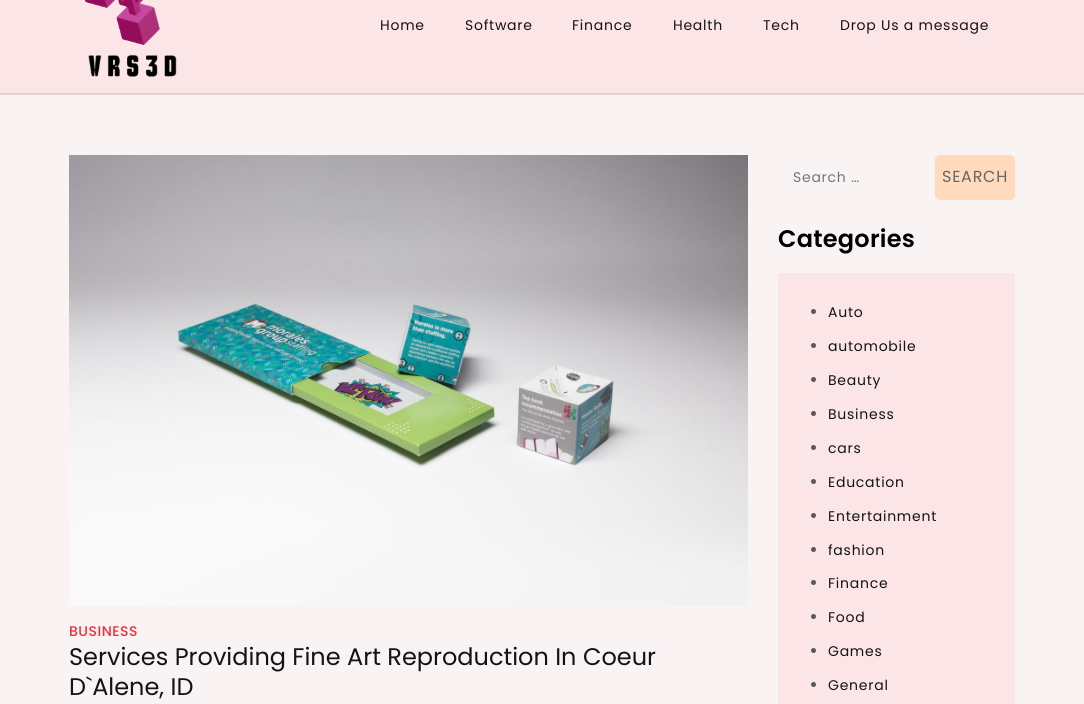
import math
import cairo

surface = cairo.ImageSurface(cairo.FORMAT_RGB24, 1084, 704)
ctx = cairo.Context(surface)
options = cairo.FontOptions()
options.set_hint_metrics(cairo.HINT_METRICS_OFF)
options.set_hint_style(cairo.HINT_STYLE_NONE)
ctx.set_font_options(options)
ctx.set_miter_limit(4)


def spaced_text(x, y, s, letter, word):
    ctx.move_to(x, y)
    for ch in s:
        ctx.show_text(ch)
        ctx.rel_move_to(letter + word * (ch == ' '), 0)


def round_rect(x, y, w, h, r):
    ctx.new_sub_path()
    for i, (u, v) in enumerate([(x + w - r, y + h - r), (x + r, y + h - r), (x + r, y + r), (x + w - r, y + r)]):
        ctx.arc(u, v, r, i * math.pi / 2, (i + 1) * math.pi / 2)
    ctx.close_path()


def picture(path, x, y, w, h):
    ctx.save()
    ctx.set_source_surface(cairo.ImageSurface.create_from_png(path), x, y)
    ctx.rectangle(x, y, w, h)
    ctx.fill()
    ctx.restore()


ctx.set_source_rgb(0.973, 0.953, 0.957)
ctx.paint()
ctx.set_source_rgb(0.988, 0.898, 0.902)
ctx.rectangle(0, 0, 1084, 93)
ctx.fill()
ctx.set_source_rgb(0.902, 0.82, 0.824)
ctx.rectangle(0, 93, 1084, 2)
ctx.fill()
picture("img1.png", 84, 0, 93, 77)
ctx.select_font_face("Poppins")
ctx.set_font_size(14)
ctx.set_source_rgb(0.071, 0.078, 0.094)
spaced_text(380, 30, "Home", 0.75, 0)
spaced_text(465, 30, "Software", 0.75, 0)
spaced_text(572, 30, "Finance", 0.75, 0)
spaced_text(673, 30, "Health", 0.75, 0)
spaced_text(763, 30, "Tech", 0.75, 0)
spaced_text(840, 30, "Drop Us a message", 0.75, 0)
picture("img2.png", 69, 155, 679, 451)
ctx.select_font_face("Poppins Medium")
ctx.set_source_rgb(0.949, 0.176, 0.227)
spaced_text(69, 636, "BUSINESS", 0.5, 0)
ctx.select_font_face("Poppins")
ctx.set_font_size(24)
ctx.set_source_rgb(0.071, 0.078, 0.094)
ctx.move_to(69, 665)
ctx.show_text("Services Providing Fine Art Reproduction In Coeur")
ctx.move_to(69, 695)
ctx.show_text("D`Alene, ID")
ctx.set_font_size(14)
ctx.set_source_rgb(0.459, 0.459, 0.459)
spaced_text(793, 182, "Search …", 0.75, 0)
ctx.set_source_rgb(1, 0.855, 0.737)
round_rect(935, 155, 80, 45, 5)
ctx.fill()
ctx.set_font_size(16)
ctx.set_source_rgb(0.4, 0.4, 0.4)
spaced_text(942, 182, "SEARCH", 0.75, 0)
ctx.select_font_face("Poppins SemiBold")
ctx.set_font_size(24)
ctx.set_source_rgb(0, 0, 0)
spaced_text(778, 247, "Categories", 0.25, 0)
ctx.set_source_rgb(0.988, 0.898, 0.902)
ctx.rectangle(778, 273, 237, 431)
ctx.fill()
ctx.set_source_rgb(0.337, 0.345, 0.349)
ctx.arc(813.5, 311.5, 2.5, 0, 2 * math.pi)
ctx.fill()
ctx.select_font_face("Poppins")
ctx.set_font_size(14)
ctx.set_source_rgb(0.071, 0.078, 0.094)
spaced_text(828, 317, "Auto", 0.75, 0)
ctx.set_source_rgb(0.337, 0.345, 0.349)
ctx.new_path()
ctx.arc(813.5, 345.5, 2.5, 0, 2 * math.pi)
ctx.fill()
ctx.set_source_rgb(0.071, 0.078, 0.094)
spaced_text(828, 351, "automobile", 0.75, 0)
ctx.set_source_rgb(0.337, 0.345, 0.349)
ctx.new_path()
ctx.arc(813.5, 379.5, 2.5, 0, 2 * math.pi)
ctx.fill()
ctx.set_source_rgb(0.071, 0.078, 0.094)
spaced_text(828, 385, "Beauty", 0.75, 0)
ctx.set_source_rgb(0.337, 0.345, 0.349)
ctx.new_path()
ctx.arc(813.5, 413.5, 2.5, 0, 2 * math.pi)
ctx.fill()
ctx.set_source_rgb(0.071, 0.078, 0.094)
spaced_text(828, 419, "Business", 0.75, 0)
ctx.set_source_rgb(0.337, 0.345, 0.349)
ctx.new_path()
ctx.arc(813.5, 447.5, 2.5, 0, 2 * math.pi)
ctx.fill()
ctx.set_source_rgb(0.071, 0.078, 0.094)
spaced_text(828, 453, "cars", 0.75, 0)
ctx.set_source_rgb(0.337, 0.345, 0.349)
ctx.new_path()
ctx.arc(813.5, 481.5, 2.5, 0, 2 * math.pi)
ctx.fill()
ctx.set_source_rgb(0.071, 0.078, 0.094)
spaced_text(828, 487, "Education", 0.75, 0)
ctx.set_source_rgb(0.337, 0.345, 0.349)
ctx.new_path()
ctx.arc(813.5, 515.5, 2.5, 0, 2 * math.pi)
ctx.fill()
ctx.set_source_rgb(0.071, 0.078, 0.094)
spaced_text(828, 521, "Entertainment", 0.75, 0)
ctx.set_source_rgb(0.337, 0.345, 0.349)
ctx.new_path()
ctx.arc(813.5, 549.5, 2.5, 0, 2 * math.pi)
ctx.fill()
ctx.set_source_rgb(0.071, 0.078, 0.094)
spaced_text(828, 555, "fashion", 0.75, 0)
ctx.set_source_rgb(0.337, 0.345, 0.349)
ctx.new_path()
ctx.arc(813.5, 582.5, 2.5, 0, 2 * math.pi)
ctx.fill()
ctx.set_source_rgb(0.071, 0.078, 0.094)
spaced_text(828, 588, "Finance", 0.75, 0)
ctx.set_source_rgb(0.337, 0.345, 0.349)
ctx.new_path()
ctx.arc(813.5, 616.5, 2.5, 0, 2 * math.pi)
ctx.fill()
ctx.set_source_rgb(0.071, 0.078, 0.094)
spaced_text(828, 622, "Food", 0.75, 0)
ctx.set_source_rgb(0.337, 0.345, 0.349)
ctx.new_path()
ctx.arc(813.5, 650.5, 2.5, 0, 2 * math.pi)
ctx.fill()
ctx.set_source_rgb(0.071, 0.078, 0.094)
spaced_text(828, 656, "Games", 0.75, 0)
ctx.set_source_rgb(0.337, 0.345, 0.349)
ctx.new_path()
ctx.arc(813.5, 684.5, 2.5, 0, 2 * math.pi)
ctx.fill()
ctx.set_source_rgb(0.071, 0.078, 0.094)
spaced_text(828, 690, "General", 0.75, 0)
surface.write_to_png("page.png")
